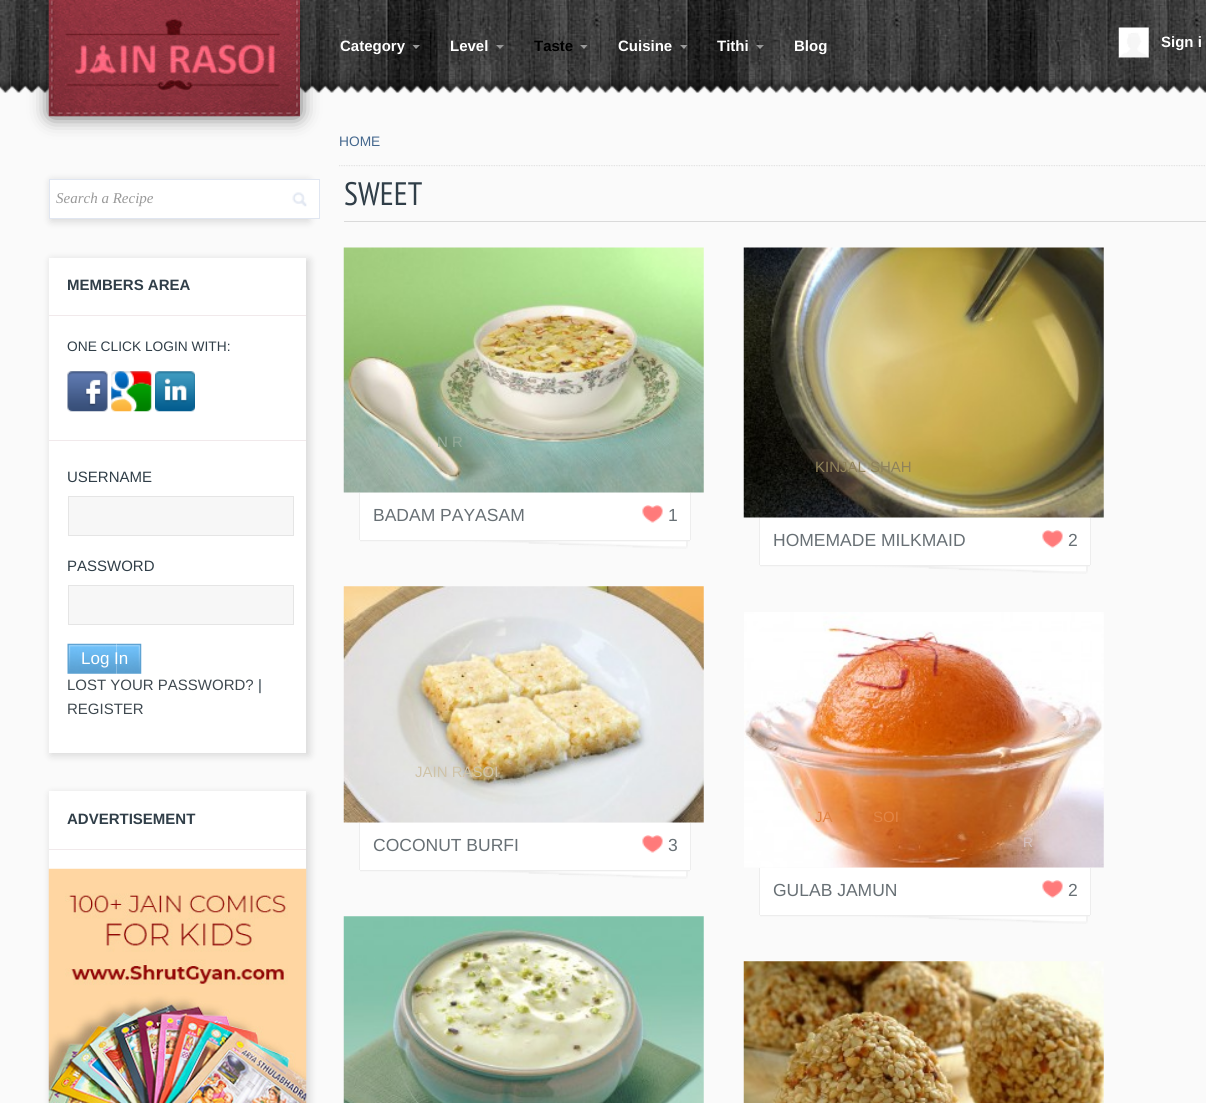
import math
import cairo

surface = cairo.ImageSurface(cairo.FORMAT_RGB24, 1206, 1103)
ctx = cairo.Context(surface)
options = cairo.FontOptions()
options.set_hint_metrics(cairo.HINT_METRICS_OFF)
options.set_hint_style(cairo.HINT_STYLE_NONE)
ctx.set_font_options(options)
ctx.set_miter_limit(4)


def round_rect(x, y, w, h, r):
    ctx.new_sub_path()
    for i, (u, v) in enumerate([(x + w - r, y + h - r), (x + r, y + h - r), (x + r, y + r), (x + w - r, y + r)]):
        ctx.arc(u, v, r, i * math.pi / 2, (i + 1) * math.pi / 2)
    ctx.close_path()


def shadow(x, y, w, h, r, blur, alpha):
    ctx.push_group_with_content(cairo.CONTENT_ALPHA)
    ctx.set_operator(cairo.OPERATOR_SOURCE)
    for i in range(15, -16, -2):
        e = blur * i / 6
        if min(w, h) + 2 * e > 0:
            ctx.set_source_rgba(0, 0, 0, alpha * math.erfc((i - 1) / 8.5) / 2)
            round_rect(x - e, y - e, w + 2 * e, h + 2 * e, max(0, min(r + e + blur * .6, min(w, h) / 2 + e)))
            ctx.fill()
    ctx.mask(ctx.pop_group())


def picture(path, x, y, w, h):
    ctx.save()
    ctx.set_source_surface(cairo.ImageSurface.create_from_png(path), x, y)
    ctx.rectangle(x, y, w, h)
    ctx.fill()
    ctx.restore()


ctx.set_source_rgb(0.98, 0.98, 0.98)
ctx.paint()
picture("img1.png", 0, 0, 1206, 93)
ctx.set_source_rgb(0, 0, 0)
shadow(51, 4, 247, 111, 0, 10, 0.7)
picture("img2.png", 48, 0, 252, 117)
ctx.select_font_face("Liberation Sans", cairo.FONT_SLANT_NORMAL, cairo.FONT_WEIGHT_BOLD)
ctx.set_font_size(15)
ctx.set_source_rgb(1, 1, 1)
ctx.move_to(340, 51)
ctx.show_text("Category")
ctx.set_source_rgb(0.6, 0.6, 0.6)
ctx.new_path()
ctx.move_to(412.5, 45)
ctx.line_to(420, 45)
ctx.line_to(416, 49)
ctx.close_path()
ctx.fill()
ctx.set_source_rgb(1, 1, 1)
ctx.move_to(450, 51)
ctx.show_text("Level")
ctx.set_source_rgb(0.6, 0.6, 0.6)
ctx.new_path()
ctx.move_to(496, 45)
ctx.line_to(504, 45)
ctx.line_to(500, 49)
ctx.close_path()
ctx.fill()
ctx.set_source_rgb(0, 0, 0)
ctx.move_to(534, 51)
ctx.show_text("Taste")
ctx.set_source_rgb(0.6, 0.6, 0.6)
ctx.new_path()
ctx.move_to(580, 45)
ctx.line_to(587.5, 45)
ctx.line_to(584, 49)
ctx.close_path()
ctx.fill()
ctx.set_source_rgb(1, 1, 1)
ctx.move_to(618, 51)
ctx.show_text("Cuisine")
ctx.set_source_rgb(0.6, 0.6, 0.6)
ctx.new_path()
ctx.move_to(680, 45)
ctx.line_to(687.5, 45)
ctx.line_to(684, 49)
ctx.close_path()
ctx.fill()
ctx.set_source_rgb(1, 1, 1)
ctx.move_to(717, 51)
ctx.show_text("Tithi")
ctx.set_source_rgb(0.6, 0.6, 0.6)
ctx.new_path()
ctx.move_to(756, 45)
ctx.line_to(764, 45)
ctx.line_to(760, 49)
ctx.close_path()
ctx.fill()
ctx.set_source_rgb(1, 1, 1)
ctx.move_to(794, 51)
ctx.show_text("Blog")
picture("img3.png", 1118, 27, 31, 31)
ctx.move_to(1161, 47)
ctx.show_text("Sign i")
picture("img4.png", 339, 165, 866, 2)
ctx.select_font_face("Liberation Sans")
ctx.set_font_size(13.75)
ctx.set_source_rgb(0.271, 0.408, 0.557)
ctx.move_to(339, 146)
ctx.show_text("HOME")
ctx.set_source_rgb(0, 0, 0)
shadow(51, 181, 258, 40, 0, 4.5, 0.15)
ctx.set_source_rgb(1, 1, 1)
ctx.rectangle(50, 180, 269, 38)
ctx.fill()
picture("img5.png", 292, 192, 15, 15)
ctx.rectangle(49.5, 179.5, 270, 39)
ctx.set_source_rgb(0.878, 0.902, 0.945)
ctx.set_line_width(1)
ctx.stroke()
ctx.select_font_face("Liberation Serif", cairo.FONT_SLANT_ITALIC)
ctx.set_font_size(15)
ctx.set_source_rgb(0.6, 0.6, 0.6)
ctx.move_to(56, 203)
ctx.show_text("Search a Recipe")
ctx.set_source_rgb(0, 0, 0)
shadow(51, 260, 258, 495, 0, 4.5, 0.15)
ctx.set_source_rgb(1, 1, 1)
ctx.rectangle(49, 258, 257, 495)
ctx.fill()
ctx.select_font_face("Liberation Sans", cairo.FONT_SLANT_NORMAL, cairo.FONT_WEIGHT_BOLD)
ctx.set_source_rgb(0.188, 0.243, 0.282)
ctx.move_to(67, 290)
ctx.show_text("MEMBERS AREA")
ctx.set_source_rgb(0.945, 0.914, 0.918)
ctx.rectangle(49, 315, 257, 1)
ctx.fill()
ctx.select_font_face("Liberation Sans")
ctx.set_font_size(13.75)
ctx.set_source_rgb(0.188, 0.243, 0.282)
ctx.move_to(67, 351)
ctx.show_text("ONE CLICK LOGIN WITH:")
picture("img6.png", 67, 371, 41, 41)
picture("img7.png", 111, 371, 41, 41)
picture("img8.png", 155, 371, 40, 41)
ctx.set_source_rgb(0.945, 0.914, 0.918)
ctx.rectangle(49, 440, 257, 1)
ctx.fill()
ctx.set_font_size(15)
ctx.set_source_rgb(0.188, 0.243, 0.282)
ctx.move_to(67, 482)
ctx.show_text("USERNAME")
ctx.set_source_rgb(0.965, 0.965, 0.965)
ctx.rectangle(68.5, 496.5, 225, 39)
ctx.fill_preserve()
ctx.set_source_rgb(0.898, 0.898, 0.898)
ctx.stroke()
ctx.set_source_rgb(0.188, 0.243, 0.282)
ctx.move_to(67, 571)
ctx.show_text("PASSWORD")
ctx.set_source_rgb(0.965, 0.965, 0.965)
ctx.rectangle(68.5, 585.5, 225, 39)
ctx.fill_preserve()
ctx.set_source_rgb(0.898, 0.898, 0.898)
ctx.stroke()
picture("img9.png", 67, 643, 50, 31)
picture("img10.png", 116, 643, 26, 31)
ctx.set_font_size(17)
ctx.set_source_rgb(1, 1, 1)
ctx.move_to(81, 664)
ctx.show_text("Log In")
ctx.set_font_size(15)
ctx.set_source_rgb(0.247, 0.286, 0.314)
ctx.move_to(67, 690)
ctx.show_text("LOST YOUR PASSWORD?")
ctx.set_source_rgb(0.188, 0.243, 0.282)
ctx.move_to(258, 690)
ctx.show_text("|")
ctx.set_source_rgb(0.247, 0.286, 0.314)
ctx.move_to(67, 714)
ctx.show_text("REGISTER")
ctx.set_source_rgb(0, 0, 0)
shadow(51, 794, 258, 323, 0, 4.5, 0.15)
ctx.set_source_rgb(1, 1, 1)
ctx.rectangle(49, 791, 257, 78)
ctx.fill()
ctx.select_font_face("Liberation Sans", cairo.FONT_SLANT_NORMAL, cairo.FONT_WEIGHT_BOLD)
ctx.set_source_rgb(0.188, 0.243, 0.282)
ctx.move_to(67, 824)
ctx.show_text("ADVERTISEMENT")
ctx.set_source_rgb(0.945, 0.914, 0.918)
ctx.rectangle(49, 849, 257, 1)
ctx.fill()
picture("img11.png", 48, 868, 259, 235)
ctx.set_source_rgb(0.855, 0.855, 0.855)
ctx.rectangle(344, 221, 862, 1)
ctx.fill()
ctx.select_font_face("PT Sans Narrow")
ctx.set_font_size(32.5)
ctx.set_source_rgb(0.188, 0.243, 0.282)
ctx.move_to(344, 205)
ctx.show_text("SWEET")
picture("img12.png", 343, 247, 361, 246)
ctx.select_font_face("Liberation Sans")
ctx.set_font_size(15)
ctx.set_source_rgb(0.584, 0.675, 0.604)
ctx.move_to(437, 447)
ctx.show_text("N R")
picture("img13.png", 360, 540, 330, 9)
ctx.set_source_rgb(1, 1, 1)
ctx.rectangle(360, 493, 330, 47)
ctx.fill()
ctx.set_source_rgb(0.929, 0.929, 0.929)
ctx.rectangle(690, 493, 1, 47)
ctx.fill()
ctx.rectangle(359, 493, 1, 47)
ctx.fill()
ctx.set_font_size(17.5)
ctx.set_source_rgb(0.408, 0.439, 0.459)
ctx.move_to(373, 521)
ctx.show_text("BADAM PAYASAM")
picture("img14.png", 642, 505, 21, 18)
ctx.move_to(668, 521)
ctx.show_text("1")
picture("img15.png", 743, 247, 361, 271)
ctx.set_font_size(15)
ctx.set_source_rgb(0.561, 0.51, 0.353)
ctx.move_to(815, 472)
ctx.show_text("KINJAL SHAH")
picture("img16.png", 760, 565, 330, 9)
ctx.set_source_rgb(1, 1, 1)
ctx.rectangle(760, 518, 330, 47)
ctx.fill()
ctx.set_source_rgb(0.929, 0.929, 0.929)
ctx.rectangle(1090, 518, 1, 47)
ctx.fill()
ctx.rectangle(759, 518, 1, 47)
ctx.fill()
ctx.set_font_size(17.5)
ctx.set_source_rgb(0.408, 0.439, 0.459)
ctx.move_to(773, 546)
ctx.show_text("HOMEMADE MILKMAID")
picture("img17.png", 1042, 530, 21, 18)
ctx.move_to(1068, 546)
ctx.show_text("2")
picture("img18.png", 343, 586, 361, 237)
ctx.set_font_size(15)
ctx.set_source_rgb(0.812, 0.765, 0.659)
ctx.move_to(415, 777)
ctx.show_text("JAIN RASOI")
picture("img13.png", 360, 870, 330, 9)
ctx.set_source_rgb(1, 1, 1)
ctx.rectangle(360, 823, 330, 47)
ctx.fill()
ctx.set_source_rgb(0.929, 0.929, 0.929)
ctx.rectangle(690, 823, 1, 47)
ctx.fill()
ctx.rectangle(359, 823, 1, 47)
ctx.fill()
ctx.set_font_size(17.5)
ctx.set_source_rgb(0.408, 0.439, 0.459)
ctx.move_to(373, 851)
ctx.show_text("COCONUT BURFI")
picture("img14.png", 642, 835, 21, 18)
ctx.move_to(668, 851)
ctx.show_text("3")
picture("img19.png", 744, 612, 360, 256)
ctx.set_font_size(15)
ctx.set_source_rgb(0.886, 0.522, 0.271)
ctx.move_to(815, 822)
ctx.show_text("JA")
ctx.move_to(873, 822)
ctx.show_text("SOI")
ctx.set_font_size(13.75)
ctx.set_source_rgb(0.843, 0.765, 0.765)
ctx.move_to(1023, 847)
ctx.show_text("R")
picture("img16.png", 760, 915, 330, 9)
ctx.set_source_rgb(1, 1, 1)
ctx.rectangle(760, 868, 330, 47)
ctx.fill()
ctx.set_source_rgb(0.929, 0.929, 0.929)
ctx.rectangle(1090, 868, 1, 47)
ctx.fill()
ctx.rectangle(759, 868, 1, 47)
ctx.fill()
ctx.set_font_size(17.5)
ctx.set_source_rgb(0.408, 0.439, 0.459)
ctx.move_to(773, 896)
ctx.show_text("GULAB JAMUN")
picture("img17.png", 1042, 880, 21, 18)
ctx.move_to(1068, 896)
ctx.show_text("2")
picture("img20.png", 343, 916, 361, 187)
picture("img21.png", 743, 961, 361, 142)
surface.write_to_png("page.png")
